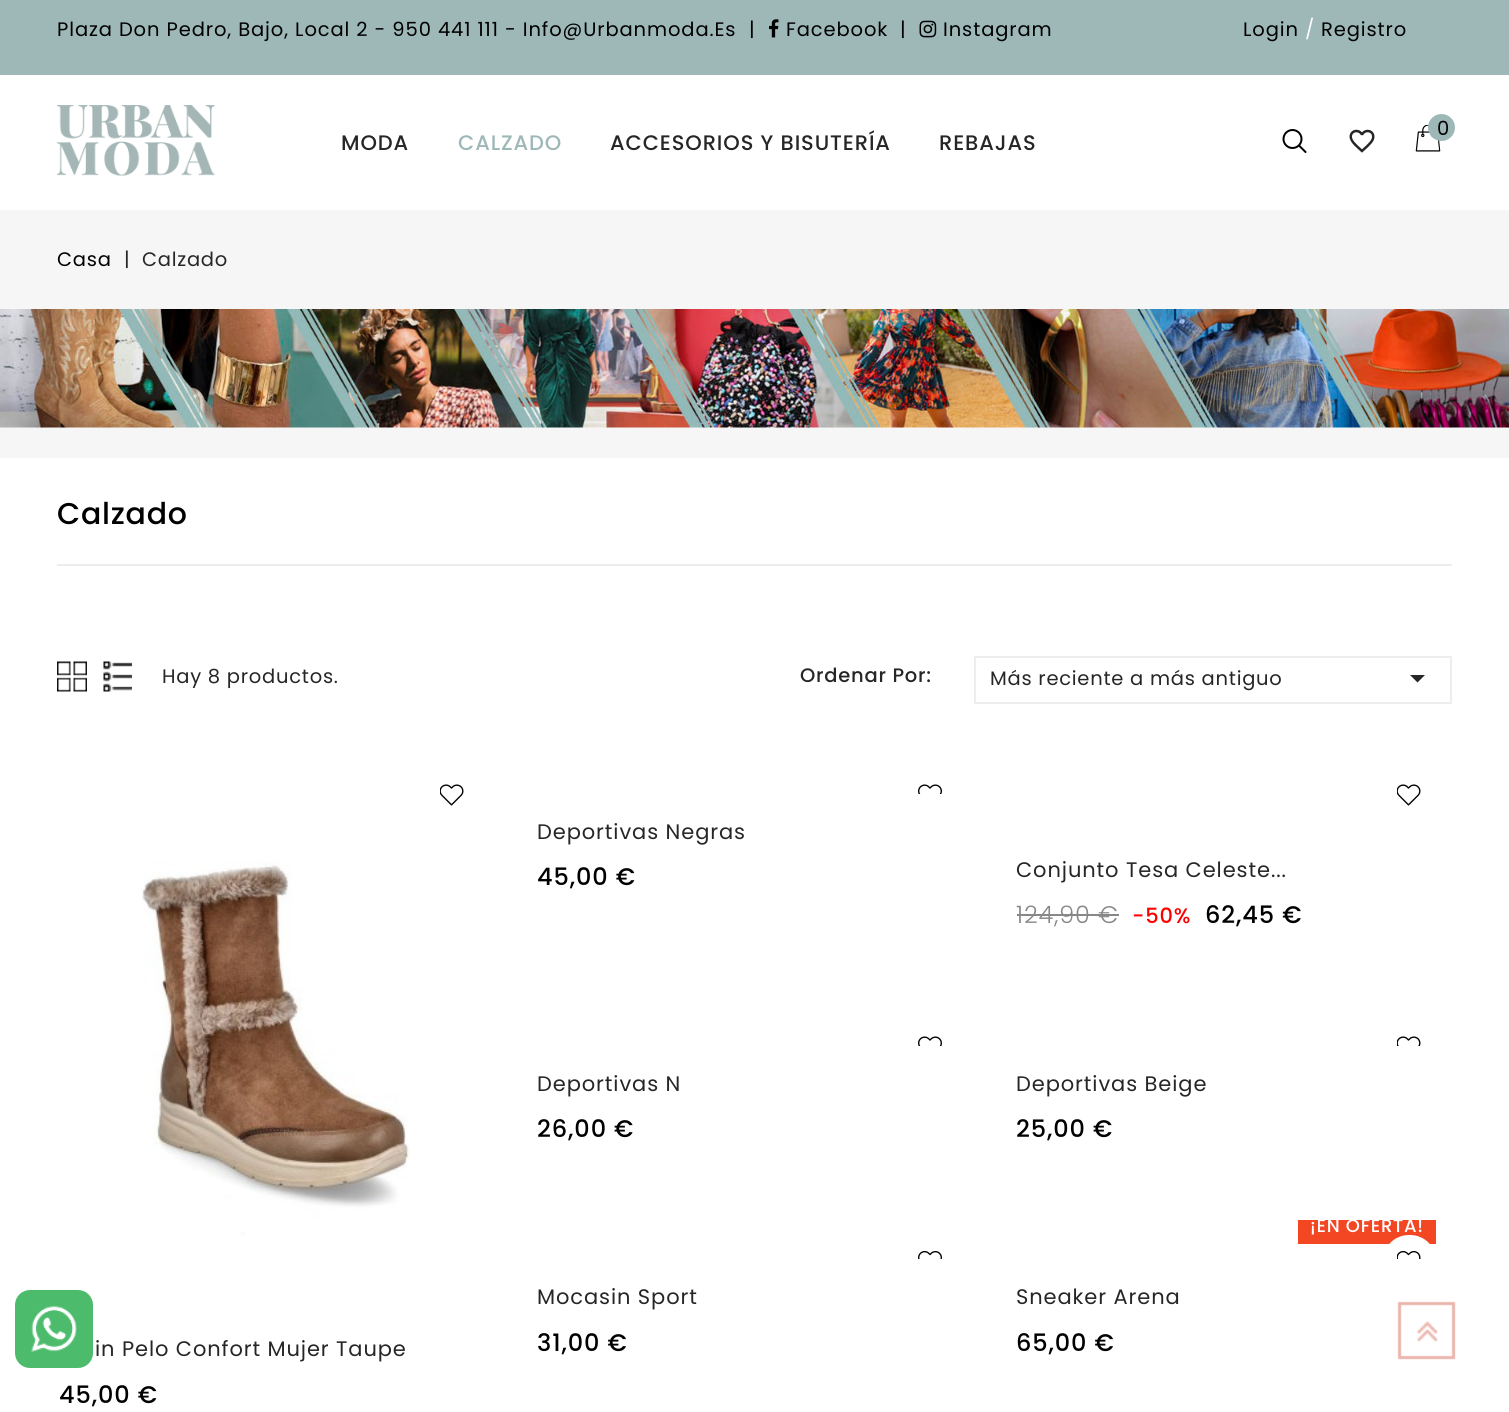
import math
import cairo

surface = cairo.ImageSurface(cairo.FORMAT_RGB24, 1509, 1412)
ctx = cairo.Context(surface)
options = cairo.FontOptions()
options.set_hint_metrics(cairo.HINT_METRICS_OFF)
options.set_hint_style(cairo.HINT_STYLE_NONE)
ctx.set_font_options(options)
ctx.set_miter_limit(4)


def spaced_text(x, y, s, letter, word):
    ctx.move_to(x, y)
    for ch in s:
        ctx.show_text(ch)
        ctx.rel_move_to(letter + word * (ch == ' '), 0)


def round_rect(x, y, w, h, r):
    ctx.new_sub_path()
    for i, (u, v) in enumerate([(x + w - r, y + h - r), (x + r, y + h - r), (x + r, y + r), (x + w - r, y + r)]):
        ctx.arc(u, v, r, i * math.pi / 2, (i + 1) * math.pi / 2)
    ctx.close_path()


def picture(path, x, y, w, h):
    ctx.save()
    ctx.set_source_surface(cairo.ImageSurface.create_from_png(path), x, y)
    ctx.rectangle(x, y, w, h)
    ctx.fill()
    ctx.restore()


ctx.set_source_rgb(1, 1, 1)
ctx.paint()
ctx.set_source_rgb(0.616, 0.722, 0.718)
ctx.rectangle(0, 0, 1509, 75)
ctx.fill()
ctx.select_font_face("Poppins")
ctx.set_font_size(19.5)
ctx.set_source_rgb(0, 0, 0)
spaced_text(57, 36, "Plaza Don Pedro, Bajo, Local 2 - 950 441 111 - Info@Urbanmoda.Es", 0.9, 0)
spaced_text(749, 36, "|", 0.9, 0)
picture("img1.png", 769, 19, 10, 19)
spaced_text(786, 36, "Facebook", 0.9, 0)
spaced_text(900, 36, "|", 0.9, 0)
picture("img2.png", 919, 20, 18, 18)
spaced_text(943, 36, "Instagram", 0.9, 0)
spaced_text(1243, 36, "Login", 0.9, 0)
ctx.set_source_rgb(1, 1, 1)
spaced_text(1305, 36, "/", 0.9, 0)
ctx.set_source_rgb(0, 0, 0)
spaced_text(1321, 36, "Registro", 0.9, 0)
picture("img3.png", 57, 105, 158, 71)
picture("img4.png", 1415, 125, 26, 27)
ctx.set_source_rgb(0.616, 0.722, 0.718)
ctx.arc(1441.5, 127.5, 13.5, 0, 2 * math.pi)
ctx.fill()
ctx.set_source_rgb(0, 0, 0)
spaced_text(1437, 135, "0", 0.75, 0)
ctx.select_font_face("Poppins Medium")
ctx.set_font_size(21)
ctx.set_source_rgb(0.149, 0.149, 0.149)
spaced_text(341, 150, "MODA", 0.9, 0)
ctx.set_source_rgb(0.616, 0.722, 0.718)
spaced_text(458, 150, "CALZADO", 0.9, 0)
ctx.set_source_rgb(0.149, 0.149, 0.149)
spaced_text(610, 150, "ACCESORIOS Y BISUTERÍA", 0.9, 0)
spaced_text(939, 150, "REBAJAS", 0.9, 0)
picture("img5.png", 1282, 129, 25, 24)
picture("img6.png", 1349, 129, 26, 24)
ctx.set_source_rgb(0.961, 0.961, 0.961)
ctx.rectangle(0, 210, 1509, 248)
ctx.fill()
ctx.select_font_face("Poppins")
ctx.set_font_size(19.5)
ctx.set_source_rgb(0, 0, 0)
spaced_text(57, 266, "Casa", 0.75, 0)
ctx.set_source_rgb(0.149, 0.149, 0.149)
spaced_text(124, 266, "|", 0.75, 0)
spaced_text(142, 266, "Calzado", 0.75, 0)
picture("img7.png", 0, 309, 1509, 119)
ctx.set_source_rgb(0.929, 0.929, 0.929)
ctx.rectangle(57, 564, 1395, 2)
ctx.fill()
ctx.select_font_face("Poppins Medium")
ctx.set_font_size(30)
ctx.set_source_rgb(0, 0, 0)
spaced_text(57, 524, "Calzado", 0.75, 0)
picture("img8.png", 57, 661, 30, 31)
picture("img9.png", 103, 661, 29, 31)
ctx.select_font_face("Poppins")
ctx.set_font_size(19.5)
ctx.set_source_rgb(0.149, 0.149, 0.149)
spaced_text(162, 683, "Hay 8 productos.", 0.75, 0)
ctx.select_font_face("Poppins Medium")
spaced_text(800, 682, "Ordenar Por:", 0.75, 0)
ctx.rectangle(975, 657, 476, 46)
ctx.set_source_rgb(0.929, 0.929, 0.929)
ctx.stroke()
ctx.select_font_face("Poppins")
ctx.set_source_rgb(0.149, 0.149, 0.149)
spaced_text(990, 685, "Más reciente a más antiguo", 0.75, 0)
ctx.new_path()
ctx.move_to(1410, 675)
ctx.line_to(1425, 675)
ctx.line_to(1417.5, 682.5)
ctx.close_path()
ctx.fill()
picture("img10.png", 918, 784, 24, 10)
ctx.set_font_size(21)
spaced_text(537, 839, "Deportivas Negras", 0.9, 0)
ctx.select_font_face("Poppins Medium")
ctx.set_font_size(24)
ctx.set_source_rgb(0, 0, 0)
spaced_text(537, 885, "45,00 €", 0.9, 0)
picture("img11.png", 1397, 784, 24, 22)
ctx.select_font_face("Poppins")
ctx.set_font_size(21)
ctx.set_source_rgb(0.149, 0.149, 0.149)
spaced_text(1016, 877, "Conjunto Tesa Celeste...", 0.9, 0)
ctx.select_font_face("Poppins Light")
ctx.set_font_size(24)
ctx.set_source_rgb(0.533, 0.533, 0.533)
spaced_text(1016, 923, "124,90 €", 0.9, 0)
ctx.rectangle(1017, 914, 102, 2)
ctx.fill()
ctx.select_font_face("Poppins Medium")
ctx.set_font_size(21)
ctx.set_source_rgb(1, 0, 0)
spaced_text(1132, 923, "-50%", 0.9, 0)
ctx.set_font_size(24)
ctx.set_source_rgb(0, 0, 0)
spaced_text(1205, 923, "62,45 €", 0.9, 0)
picture("img10.png", 918, 1036, 24, 10)
ctx.select_font_face("Poppins")
ctx.set_font_size(21)
ctx.set_source_rgb(0.149, 0.149, 0.149)
spaced_text(537, 1091, "Deportivas N", 0.9, 0)
ctx.select_font_face("Poppins Medium")
ctx.set_font_size(24)
ctx.set_source_rgb(0, 0, 0)
spaced_text(537, 1137, "26,00 €", 0.9, 0)
picture("img12.png", 1397, 1036, 24, 10)
ctx.select_font_face("Poppins")
ctx.set_font_size(21)
ctx.set_source_rgb(0.149, 0.149, 0.149)
spaced_text(1016, 1091, "Deportivas Beige", 0.9, 0)
ctx.select_font_face("Poppins Medium")
ctx.set_font_size(24)
ctx.set_source_rgb(0, 0, 0)
spaced_text(1016, 1137, "25,00 €", 0.9, 0)
picture("img13.png", 918, 1250, 24, 9)
ctx.select_font_face("Poppins")
ctx.set_font_size(21)
ctx.set_source_rgb(0.149, 0.149, 0.149)
spaced_text(537, 1304, "Mocasin Sport", 0.9, 0)
ctx.select_font_face("Poppins Medium")
ctx.set_font_size(24)
ctx.set_source_rgb(0, 0, 0)
spaced_text(537, 1351, "31,00 €", 0.9, 0)
ctx.set_source_rgb(0.953, 0.278, 0.137)
ctx.rectangle(1298, 1220, 138, 24)
ctx.fill()
ctx.save()
ctx.rectangle(1017, 1220, 434, 39)
ctx.clip()
ctx.set_font_size(18)
ctx.set_source_rgb(1, 1, 1)
spaced_text(1310, 1232, "¡EN OFERTA!", 0.75, 0)
ctx.restore()
ctx.set_source_rgb(1, 1, 1)
ctx.new_path()
ctx.move_to(1409, 1235)
ctx.line_to(1410, 1235)
ctx.curve_to(1424.5, 1235, 1436, 1246.5, 1436, 1261)
ctx.line_to(1436, 1259)
ctx.line_to(1383, 1259)
ctx.line_to(1383, 1261)
ctx.curve_to(1383, 1246.5, 1394.5, 1235, 1409, 1235)
ctx.close_path()
ctx.fill()
picture("img14.png", 1397, 1251, 24, 8)
ctx.select_font_face("Poppins")
ctx.set_font_size(21)
ctx.set_source_rgb(0.149, 0.149, 0.149)
spaced_text(1016, 1304, "Sneaker Arena", 0.9, 0)
ctx.select_font_face("Poppins Medium")
ctx.set_font_size(24)
ctx.set_source_rgb(0, 0, 0)
spaced_text(1016, 1351, "65,00 €", 0.9, 0)
picture("img11.png", 440, 784, 24, 22)
picture("img15.png", 141, 861, 269, 374)
ctx.select_font_face("Poppins")
ctx.set_font_size(21)
ctx.set_source_rgb(0.149, 0.149, 0.149)
spaced_text(95, 1356, "in Pelo Confort Mujer Taupe", 0.9, 0)
ctx.select_font_face("Poppins Medium")
ctx.set_font_size(24)
ctx.set_source_rgb(0, 0, 0)
spaced_text(59, 1403, "45,00 €", 0.9, 0)
ctx.set_source_rgb(0.298, 0.733, 0.424)
round_rect(16, 1291, 76, 76, 14)
ctx.fill_preserve()
ctx.stroke()
picture("img16.png", 31, 1306, 46, 46)
picture("img17.png", 1397, 1301, 59, 59)
surface.write_to_png("page.png")
